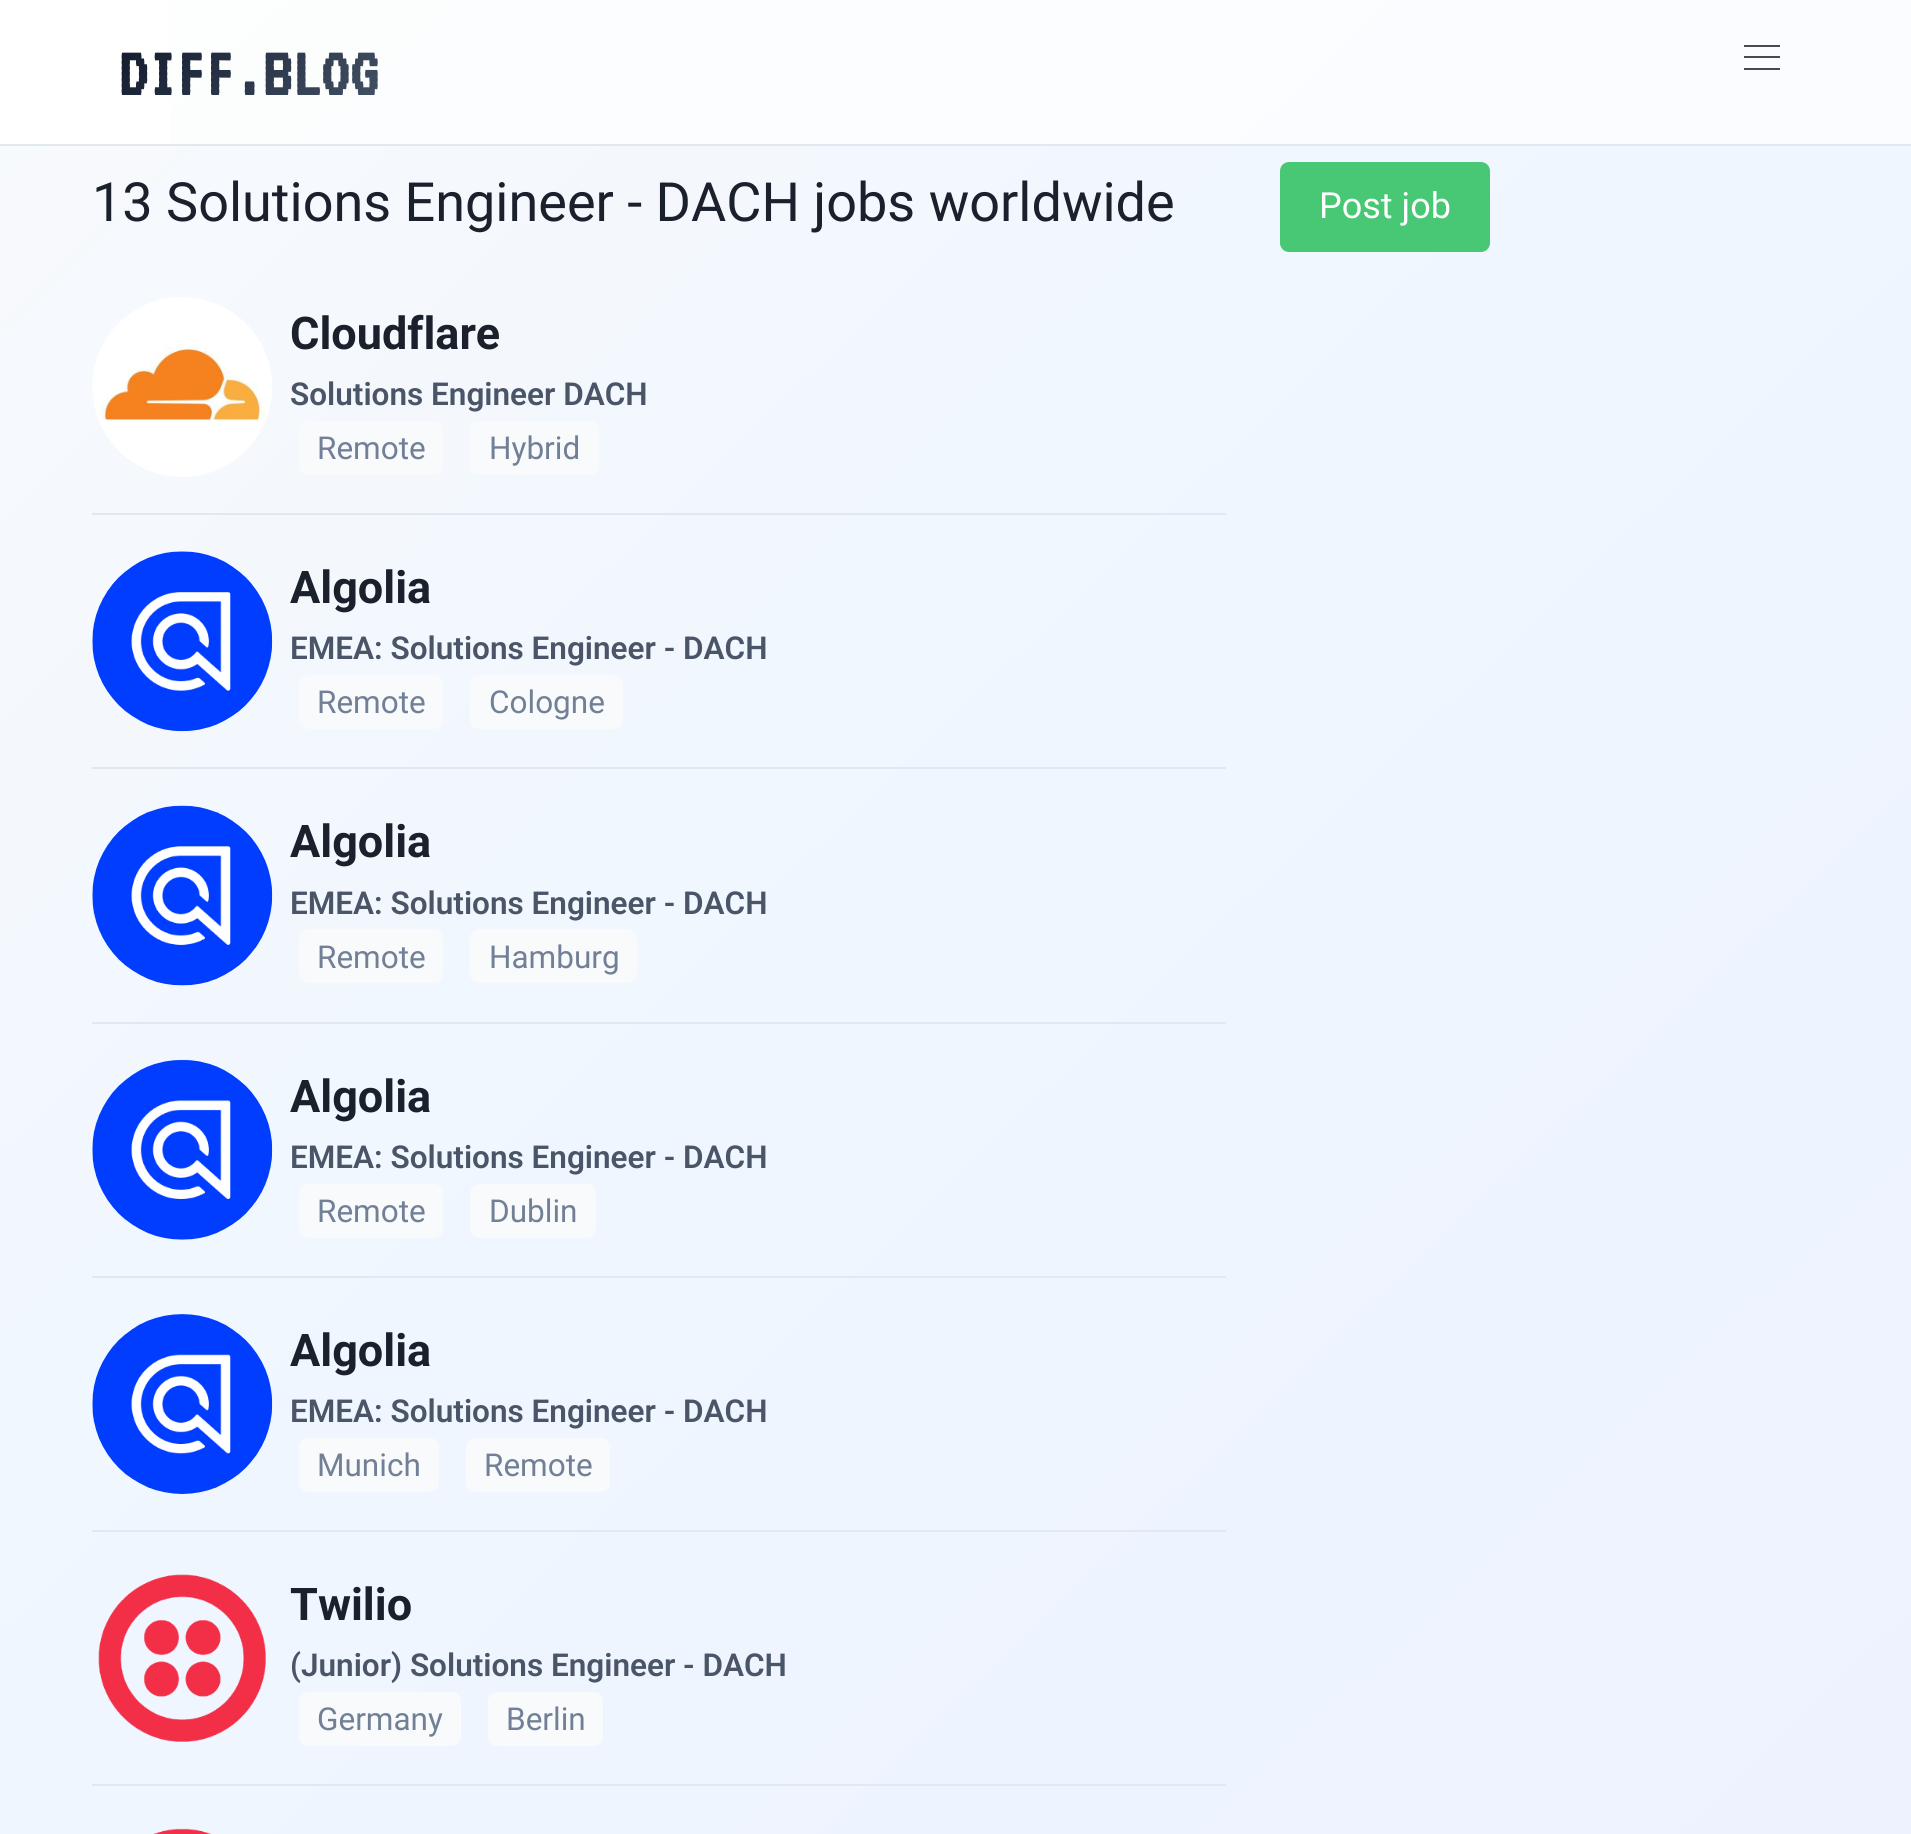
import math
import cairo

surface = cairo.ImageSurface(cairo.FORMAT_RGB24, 1911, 1834)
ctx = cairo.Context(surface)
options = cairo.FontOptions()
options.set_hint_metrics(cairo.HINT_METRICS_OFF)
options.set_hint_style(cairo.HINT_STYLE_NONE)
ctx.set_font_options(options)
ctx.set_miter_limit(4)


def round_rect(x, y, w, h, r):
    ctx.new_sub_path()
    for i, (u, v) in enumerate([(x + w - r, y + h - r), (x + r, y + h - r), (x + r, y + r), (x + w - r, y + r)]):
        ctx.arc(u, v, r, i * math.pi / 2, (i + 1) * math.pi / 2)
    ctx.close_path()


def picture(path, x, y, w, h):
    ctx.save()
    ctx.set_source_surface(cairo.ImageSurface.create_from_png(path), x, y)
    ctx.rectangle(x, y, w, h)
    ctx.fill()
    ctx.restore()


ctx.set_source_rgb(1, 1, 1)
ctx.paint()
gradient = cairo.LinearGradient(39, -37, 1873, 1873)
gradient.add_color_stop_rgba(0, 0.973, 0.98, 0.988, 1)
gradient.add_color_stop_rgba(0.5, 0.937, 0.965, 1, 1)
gradient.add_color_stop_rgba(1, 0.933, 0.949, 1, 1)
ctx.set_source(gradient)
ctx.rectangle(0, 146, 1911, 1688)
ctx.fill()
gradient = cairo.LinearGradient(39, -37, 1873, 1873)
gradient.add_color_stop_rgba(0, 0.992, 0.996, 0.996, 1)
gradient.add_color_stop_rgba(0.5, 0.98, 0.988, 1, 1)
gradient.add_color_stop_rgba(1, 0.98, 0.984, 1, 1)
ctx.set_source(gradient)
ctx.rectangle(170, 0, 1741, 144)
ctx.fill()
ctx.set_source_rgb(0.886, 0.91, 0.941)
ctx.rectangle(0, 144, 1911, 2)
ctx.fill()
ctx.select_font_face("VT323", cairo.FONT_SLANT_NORMAL, cairo.FONT_WEIGHT_BOLD)
ctx.set_font_size(72)
gradient = cairo.LinearGradient(157, -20, 341, 164)
gradient.add_color_stop_rgba(0, 0.059, 0.09, 0.165, 1)
gradient.add_color_stop_rgba(1, 0.278, 0.333, 0.412, 1)
ctx.set_source(gradient)
ctx.move_to(119, 95)
ctx.show_text("DIFF.BLOG")
ctx.set_source_rgb(0.29, 0.29, 0.29)
ctx.rectangle(1744, 45, 36, 2)
ctx.fill()
ctx.rectangle(1744, 56, 36, 2)
ctx.fill()
ctx.rectangle(1744, 68, 36, 2)
ctx.fill()
ctx.select_font_face("Roboto")
ctx.set_font_size(54)
ctx.set_source_rgb(0.102, 0.125, 0.173)
ctx.move_to(92, 221)
ctx.show_text("13 Solutions Engineer - DACH jobs worldwide")
ctx.set_source_rgb(0.886, 0.91, 0.941)
ctx.rectangle(92, 513, 1134, 2)
ctx.fill()
picture("img1.png", 92, 297, 180, 180)
ctx.select_font_face("Roboto", cairo.FONT_SLANT_NORMAL, cairo.FONT_WEIGHT_BOLD)
ctx.set_font_size(45)
ctx.set_source_rgb(0.102, 0.125, 0.173)
ctx.move_to(290, 349)
ctx.show_text("Cloudflare")
ctx.select_font_face("Roboto SemiBold")
ctx.set_font_size(31.5)
ctx.set_source_rgb(0.29, 0.333, 0.408)
ctx.move_to(290, 405)
ctx.show_text("Solutions Engineer DACH")
ctx.set_source_rgb(0.969, 0.98, 0.988)
round_rect(299, 421, 144, 54, 9)
ctx.fill()
ctx.select_font_face("Roboto")
ctx.set_source_rgb(0.443, 0.502, 0.588)
ctx.move_to(317, 459)
ctx.show_text("Remote")
ctx.set_source_rgb(0.969, 0.98, 0.988)
round_rect(470, 421, 129, 54, 9)
ctx.fill()
ctx.set_source_rgb(0.443, 0.502, 0.588)
ctx.move_to(489, 459)
ctx.show_text("Hybrid")
ctx.set_source_rgb(0.886, 0.91, 0.941)
ctx.rectangle(92, 767, 1134, 2)
ctx.fill()
picture("img2.png", 92, 551, 181, 181)
ctx.select_font_face("Roboto", cairo.FONT_SLANT_NORMAL, cairo.FONT_WEIGHT_BOLD)
ctx.set_font_size(45)
ctx.set_source_rgb(0.102, 0.125, 0.173)
ctx.move_to(290, 603)
ctx.show_text("Algolia")
ctx.select_font_face("Roboto SemiBold")
ctx.set_font_size(31.5)
ctx.set_source_rgb(0.29, 0.333, 0.408)
ctx.move_to(290, 659)
ctx.show_text("EMEA: Solutions Engineer - DACH")
ctx.set_source_rgb(0.969, 0.98, 0.988)
round_rect(299, 675, 144, 54, 9)
ctx.fill()
ctx.select_font_face("Roboto")
ctx.set_source_rgb(0.443, 0.502, 0.588)
ctx.move_to(317, 713)
ctx.show_text("Remote")
ctx.set_source_rgb(0.969, 0.98, 0.988)
round_rect(470, 675, 153, 54, 9)
ctx.fill()
ctx.set_source_rgb(0.443, 0.502, 0.588)
ctx.move_to(489, 713)
ctx.show_text("Cologne")
ctx.set_source_rgb(0.886, 0.91, 0.941)
ctx.rectangle(92, 1022, 1134, 2)
ctx.fill()
picture("img3.png", 92, 805, 181, 181)
ctx.select_font_face("Roboto", cairo.FONT_SLANT_NORMAL, cairo.FONT_WEIGHT_BOLD)
ctx.set_font_size(45)
ctx.set_source_rgb(0.102, 0.125, 0.173)
ctx.move_to(290, 857)
ctx.show_text("Algolia")
ctx.select_font_face("Roboto SemiBold")
ctx.set_font_size(31.5)
ctx.set_source_rgb(0.29, 0.333, 0.408)
ctx.move_to(290, 914)
ctx.show_text("EMEA: Solutions Engineer - DACH")
ctx.set_source_rgb(0.969, 0.98, 0.988)
round_rect(299, 929, 144, 54, 9)
ctx.fill()
ctx.select_font_face("Roboto")
ctx.set_source_rgb(0.443, 0.502, 0.588)
ctx.move_to(317, 968)
ctx.show_text("Remote")
ctx.set_source_rgb(0.969, 0.98, 0.988)
round_rect(470, 929, 167, 54, 9)
ctx.fill()
ctx.set_source_rgb(0.443, 0.502, 0.588)
ctx.move_to(489, 968)
ctx.show_text("Hamburg")
ctx.set_source_rgb(0.886, 0.91, 0.941)
ctx.rectangle(92, 1276, 1134, 2)
ctx.fill()
picture("img4.png", 92, 1059, 181, 181)
ctx.select_font_face("Roboto", cairo.FONT_SLANT_NORMAL, cairo.FONT_WEIGHT_BOLD)
ctx.set_font_size(45)
ctx.set_source_rgb(0.102, 0.125, 0.173)
ctx.move_to(290, 1112)
ctx.show_text("Algolia")
ctx.select_font_face("Roboto SemiBold")
ctx.set_font_size(31.5)
ctx.set_source_rgb(0.29, 0.333, 0.408)
ctx.move_to(290, 1168)
ctx.show_text("EMEA: Solutions Engineer - DACH")
ctx.set_source_rgb(0.969, 0.98, 0.988)
round_rect(299, 1184, 144, 54, 9)
ctx.fill()
ctx.select_font_face("Roboto")
ctx.set_source_rgb(0.443, 0.502, 0.588)
ctx.move_to(317, 1222)
ctx.show_text("Remote")
ctx.set_source_rgb(0.969, 0.98, 0.988)
round_rect(470, 1184, 126, 54, 9)
ctx.fill()
ctx.set_source_rgb(0.443, 0.502, 0.588)
ctx.move_to(489, 1222)
ctx.show_text("Dublin")
ctx.set_source_rgb(0.886, 0.91, 0.941)
ctx.rectangle(92, 1530, 1134, 2)
ctx.fill()
picture("img5.png", 92, 1314, 181, 180)
ctx.select_font_face("Roboto", cairo.FONT_SLANT_NORMAL, cairo.FONT_WEIGHT_BOLD)
ctx.set_font_size(45)
ctx.set_source_rgb(0.102, 0.125, 0.173)
ctx.move_to(290, 1366)
ctx.show_text("Algolia")
ctx.select_font_face("Roboto SemiBold")
ctx.set_font_size(31.5)
ctx.set_source_rgb(0.29, 0.333, 0.408)
ctx.move_to(290, 1422)
ctx.show_text("EMEA: Solutions Engineer - DACH")
ctx.set_source_rgb(0.969, 0.98, 0.988)
round_rect(299, 1438, 140, 54, 9)
ctx.fill()
ctx.select_font_face("Roboto")
ctx.set_source_rgb(0.443, 0.502, 0.588)
ctx.move_to(317, 1476)
ctx.show_text("Munich")
ctx.set_source_rgb(0.969, 0.98, 0.988)
round_rect(466, 1438, 144, 54, 9)
ctx.fill()
ctx.set_source_rgb(0.443, 0.502, 0.588)
ctx.move_to(484, 1476)
ctx.show_text("Remote")
ctx.set_source_rgb(0.886, 0.91, 0.941)
ctx.rectangle(92, 1784, 1134, 2)
ctx.fill()
picture("img6.png", 98, 1574, 168, 168)
ctx.select_font_face("Roboto", cairo.FONT_SLANT_NORMAL, cairo.FONT_WEIGHT_BOLD)
ctx.set_font_size(45)
ctx.set_source_rgb(0.102, 0.125, 0.173)
ctx.move_to(290, 1620)
ctx.show_text("Twilio")
ctx.select_font_face("Roboto SemiBold")
ctx.set_font_size(31.5)
ctx.set_source_rgb(0.29, 0.333, 0.408)
ctx.move_to(290, 1676)
ctx.show_text("(Junior) Solutions Engineer - DACH")
ctx.set_source_rgb(0.969, 0.98, 0.988)
round_rect(299, 1692, 162, 54, 9)
ctx.fill()
ctx.select_font_face("Roboto")
ctx.set_source_rgb(0.443, 0.502, 0.588)
ctx.move_to(317, 1730)
ctx.show_text("Germany")
ctx.set_source_rgb(0.969, 0.98, 0.988)
round_rect(488, 1692, 115, 54, 9)
ctx.fill()
ctx.set_source_rgb(0.443, 0.502, 0.588)
ctx.move_to(506, 1730)
ctx.show_text("Berlin")
picture("img7.png", 153, 1828, 58, 6)
ctx.set_source_rgb(0.282, 0.78, 0.455)
round_rect(1280, 162, 210, 90, 9)
ctx.fill()
ctx.set_font_size(36)
ctx.set_source_rgb(1, 1, 1)
ctx.move_to(1319, 218)
ctx.show_text("Post job")
surface.write_to_png("page.png")
